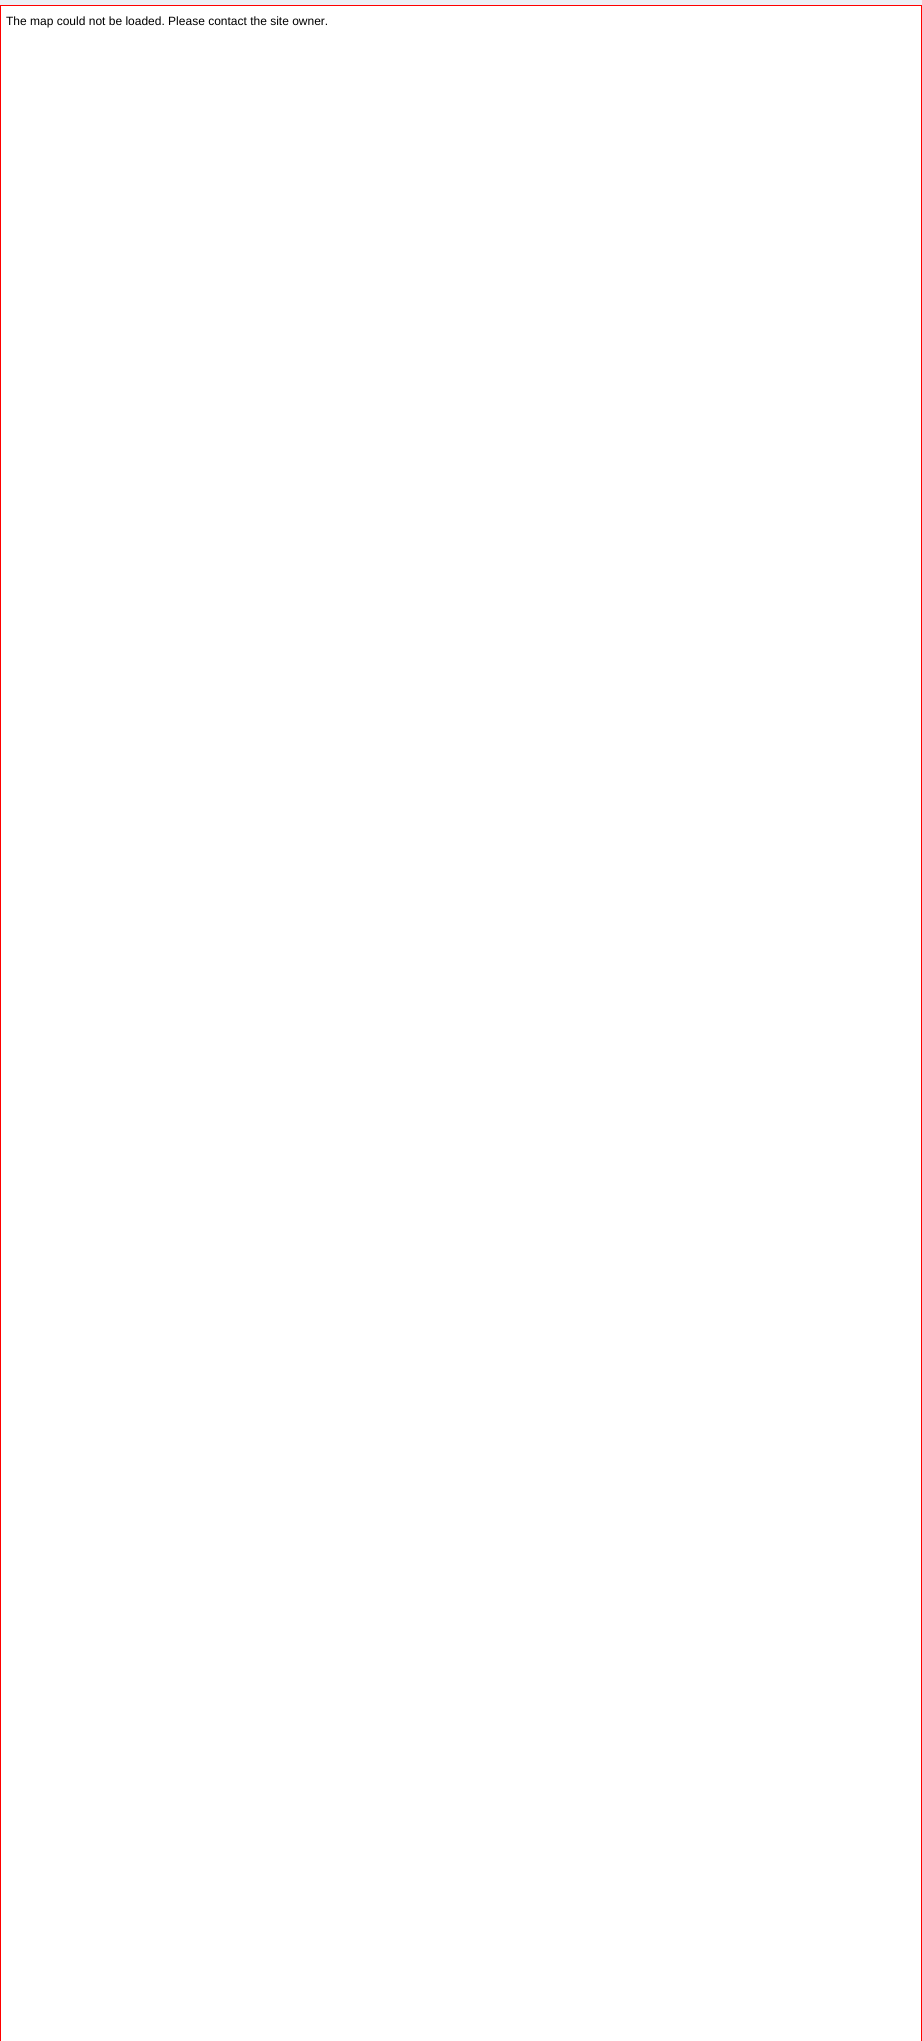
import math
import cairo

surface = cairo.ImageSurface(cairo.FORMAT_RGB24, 922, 2041)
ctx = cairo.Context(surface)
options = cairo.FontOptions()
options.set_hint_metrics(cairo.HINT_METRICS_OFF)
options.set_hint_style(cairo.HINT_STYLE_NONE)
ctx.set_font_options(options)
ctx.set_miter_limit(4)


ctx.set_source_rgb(0.925, 0.941, 0.961)
ctx.paint()
ctx.set_source_rgb(1, 1, 1)
ctx.rectangle(0.5, 5.5, 921, 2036)
ctx.fill_preserve()
ctx.set_source_rgb(1, 0, 0)
ctx.set_line_width(1)
ctx.stroke()
ctx.select_font_face("Liberation Sans")
ctx.set_font_size(12)
ctx.set_source_rgb(0, 0, 0)
ctx.move_to(6, 25)
ctx.show_text("The map could not be loaded. Please contact the site owner.")
surface.write_to_png("page.png")
